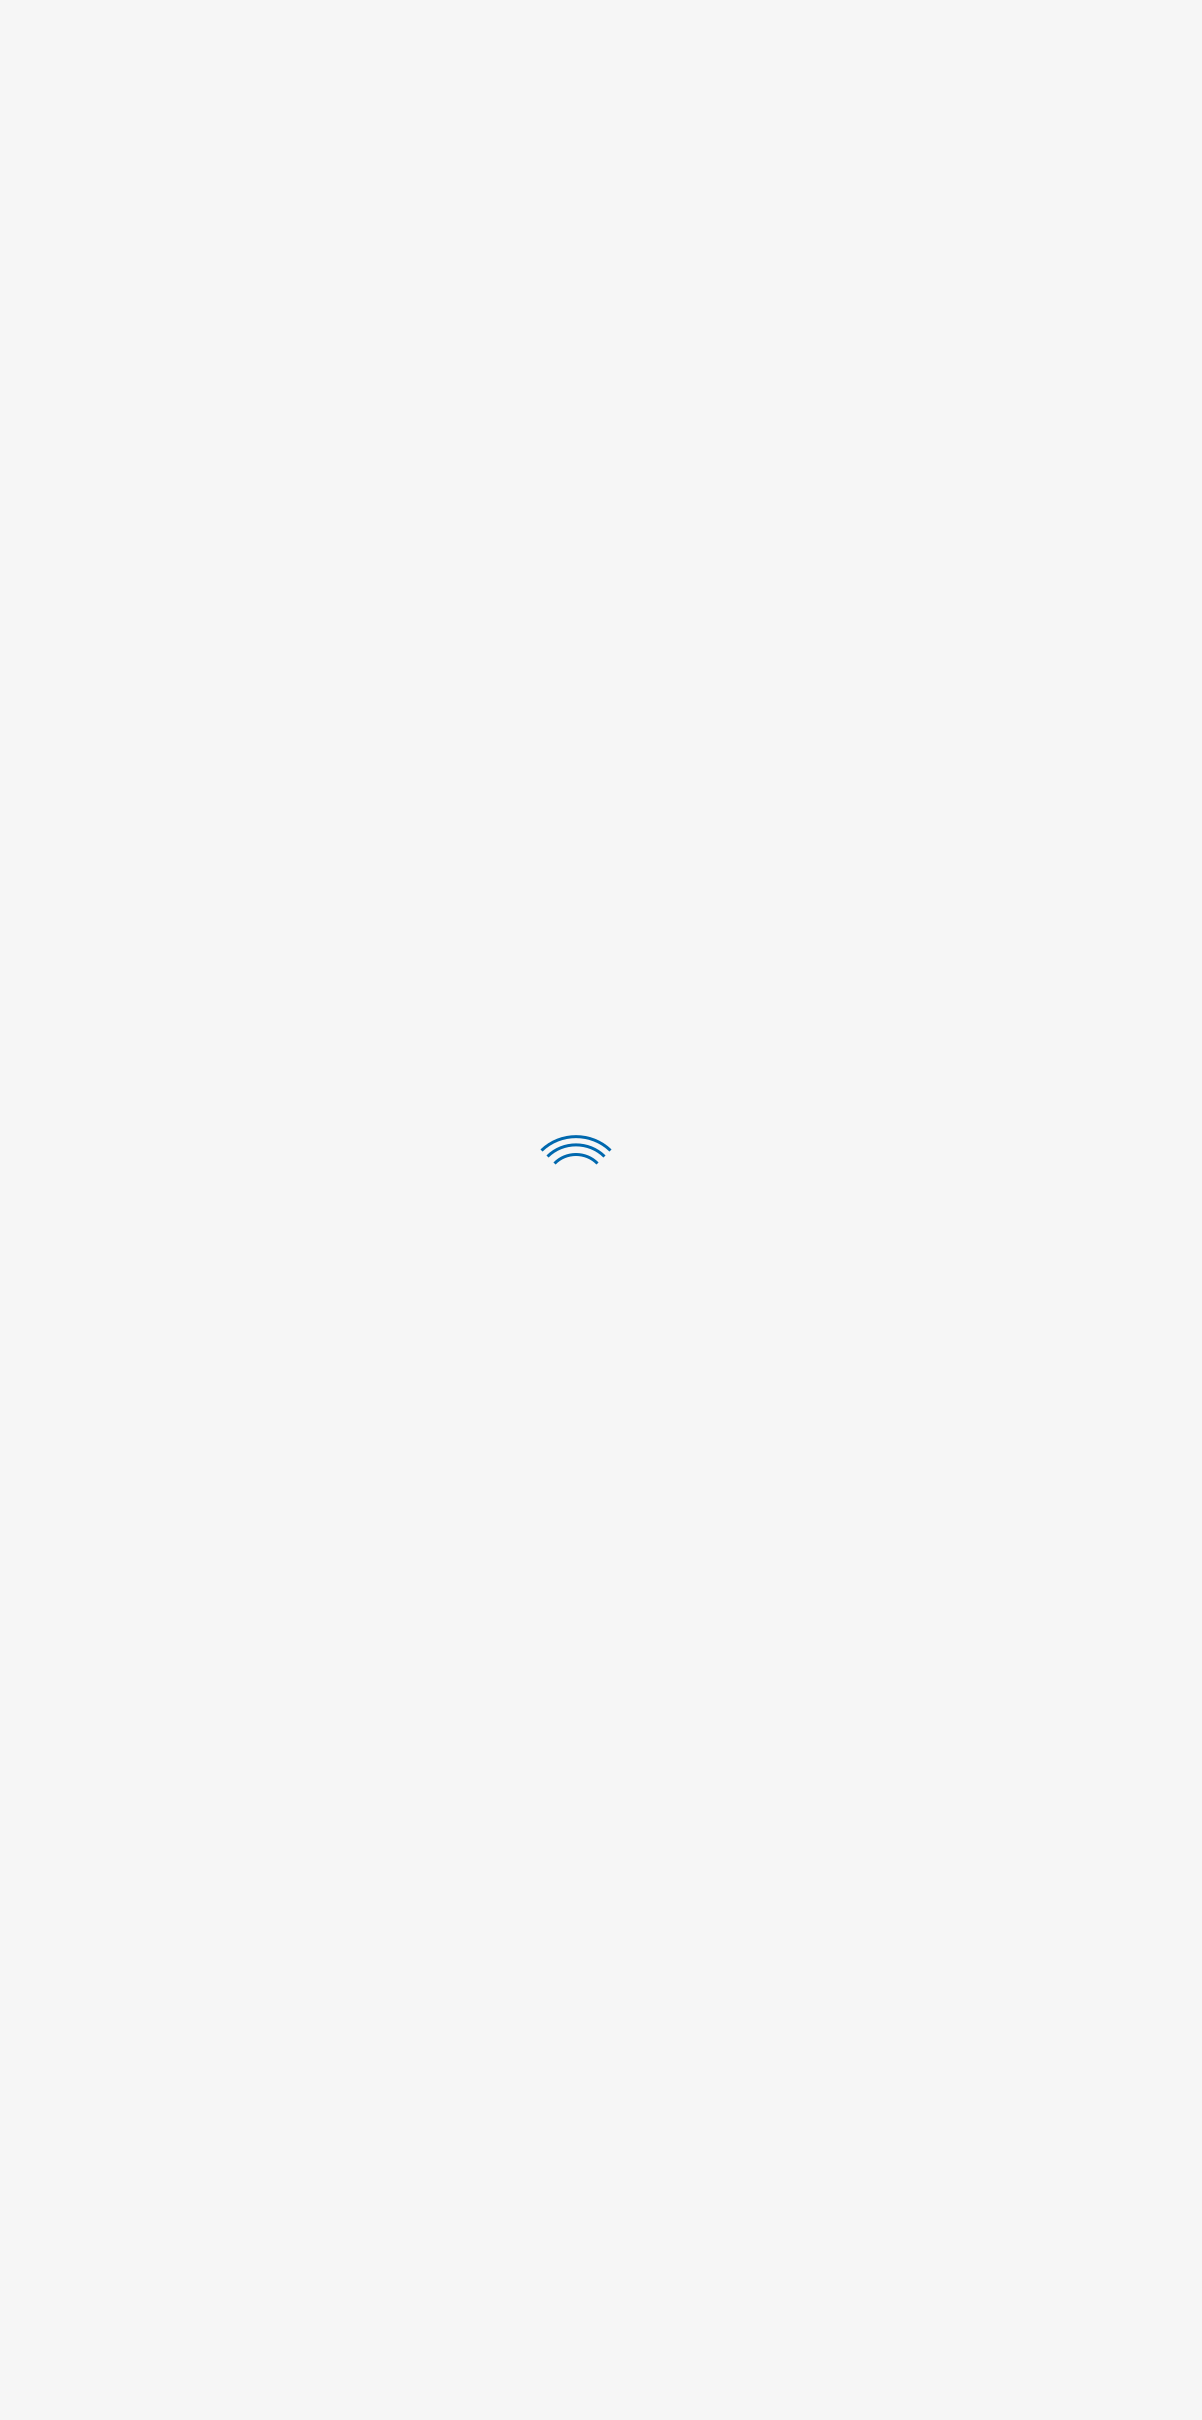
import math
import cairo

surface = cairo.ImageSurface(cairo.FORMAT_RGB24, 1202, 2420)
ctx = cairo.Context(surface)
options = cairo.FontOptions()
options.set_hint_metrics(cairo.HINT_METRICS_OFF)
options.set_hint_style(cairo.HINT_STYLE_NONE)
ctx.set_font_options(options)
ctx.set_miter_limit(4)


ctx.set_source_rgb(0.961, 0.961, 0.961)
ctx.paint()
ctx.new_path()
ctx.move_to(541.5, 1150.5)
ctx.curve_to(560.5, 1132, 591.5, 1132, 610.5, 1150.5)
ctx.set_source_rgb(0, 0.408, 0.682)
ctx.set_line_width(3)
ctx.stroke()
ctx.new_path()
ctx.move_to(547.5, 1156.5)
ctx.curve_to(563, 1141, 589, 1141, 604.5, 1156.5)
ctx.move_to(554.5, 1163.5)
ctx.curve_to(566, 1151.5, 586, 1151.5, 597.5, 1163.5)
ctx.stroke()
surface.write_to_png("page.png")
